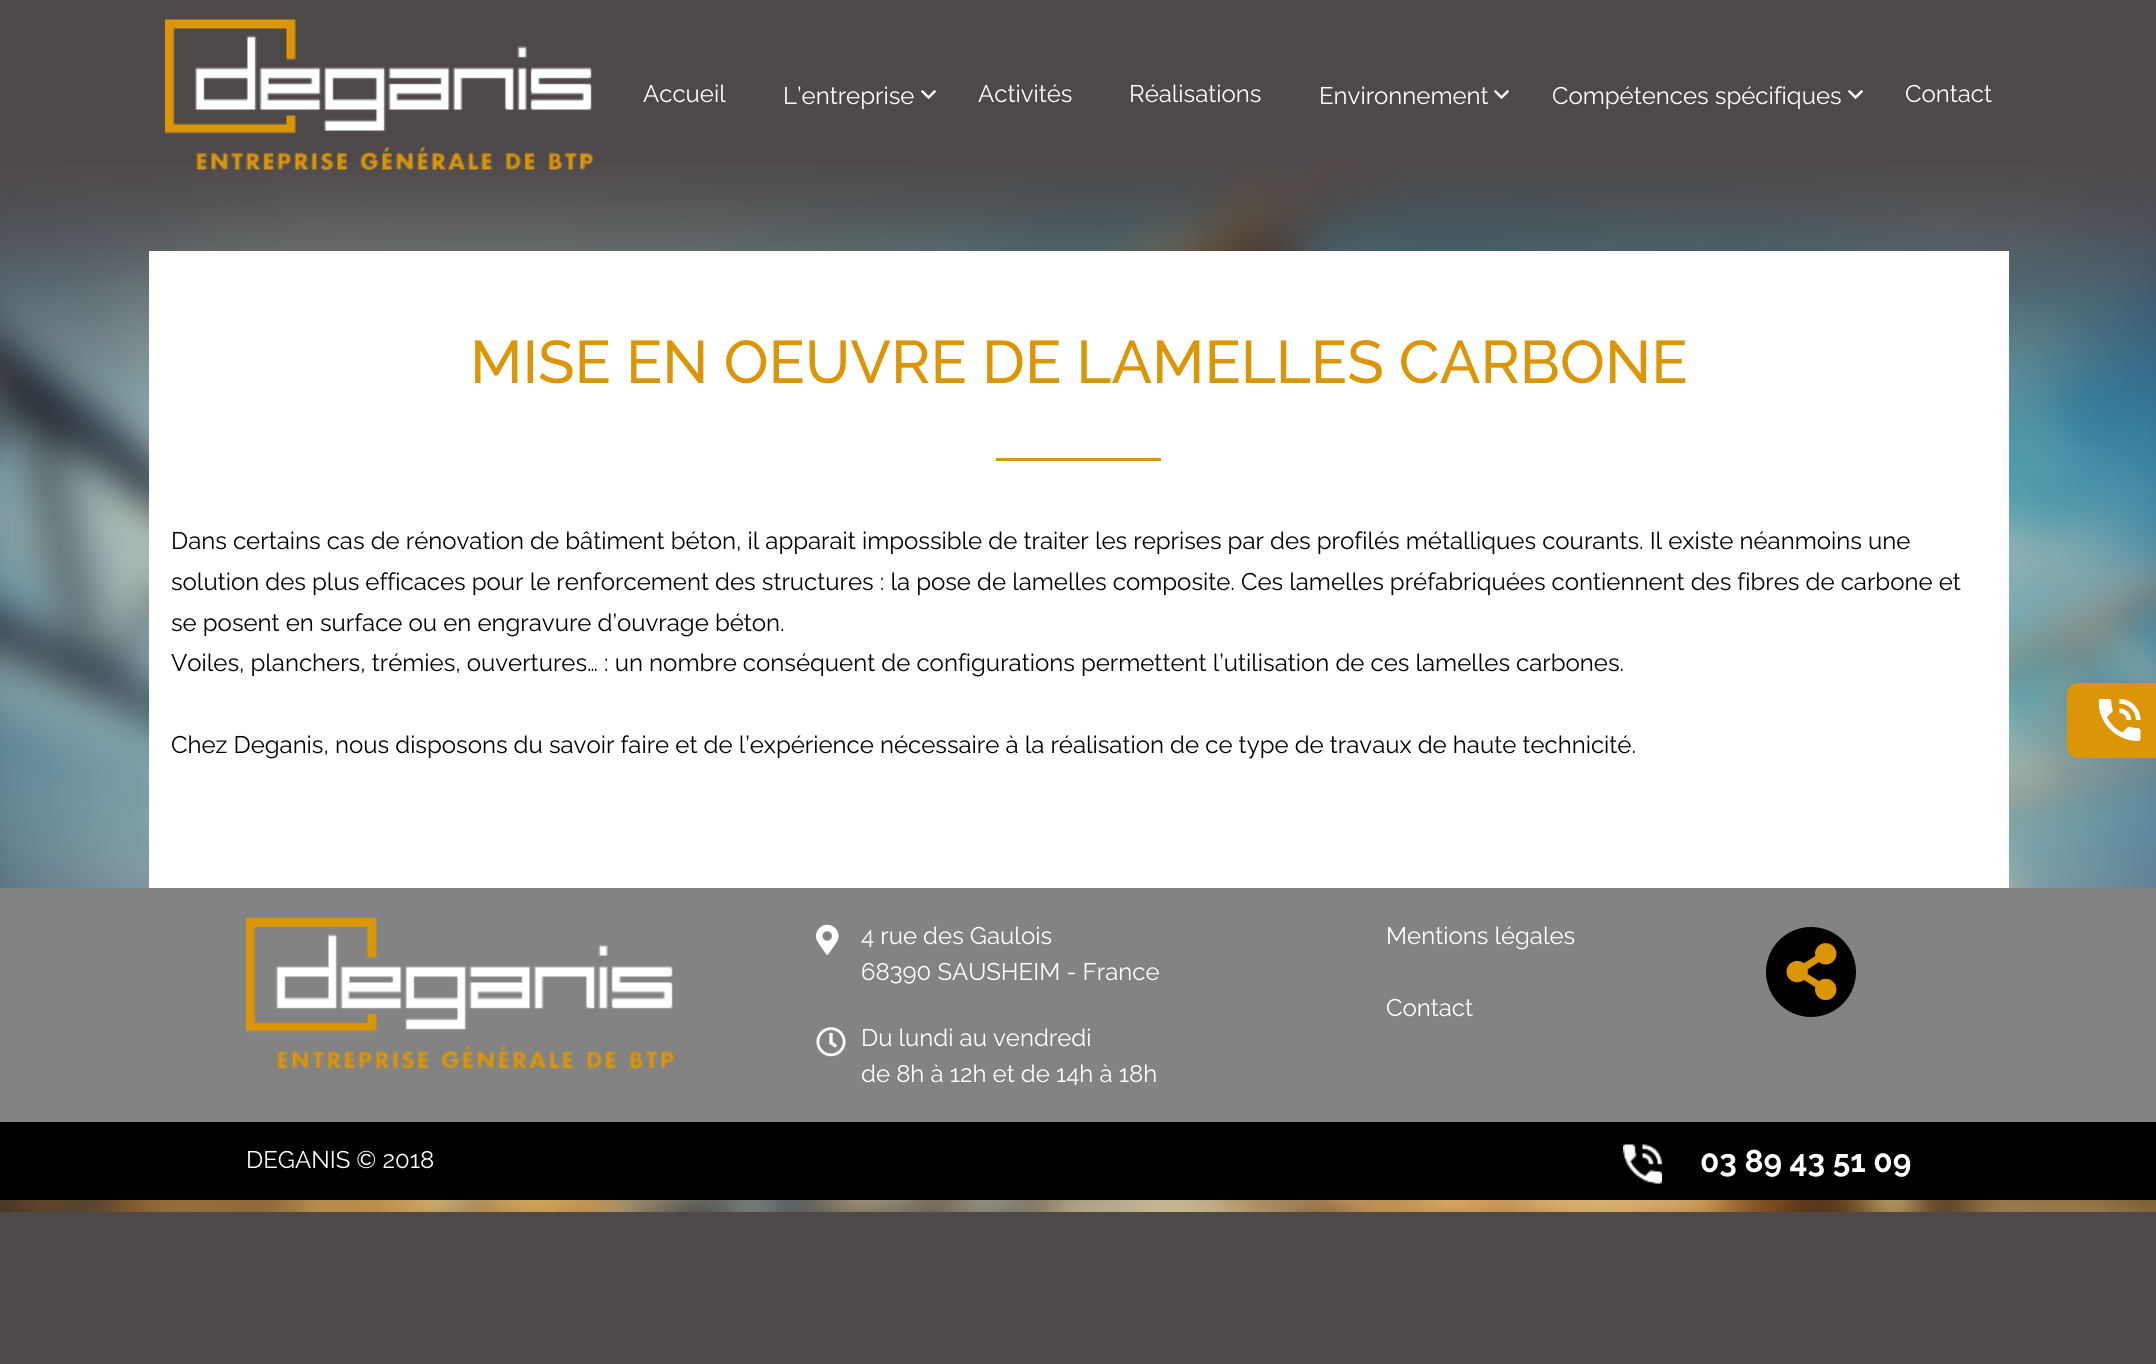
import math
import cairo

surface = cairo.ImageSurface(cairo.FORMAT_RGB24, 2156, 1364)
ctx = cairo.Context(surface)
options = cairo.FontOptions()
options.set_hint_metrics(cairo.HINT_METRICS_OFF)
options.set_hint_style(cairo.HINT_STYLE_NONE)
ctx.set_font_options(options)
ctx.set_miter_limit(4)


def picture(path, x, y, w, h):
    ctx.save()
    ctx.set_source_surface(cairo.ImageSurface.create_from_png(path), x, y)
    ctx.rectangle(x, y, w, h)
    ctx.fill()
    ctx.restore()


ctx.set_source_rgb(0.31, 0.282, 0.282)
ctx.paint()
picture("img1.png", 0, 162, 2156, 1050)
picture("img2.png", 165, 19, 428, 152)
ctx.select_font_face("Raleway")
ctx.set_font_size(24)
ctx.set_source_rgb(1, 1, 1)
ctx.move_to(643, 102)
ctx.show_text("Accueil")
ctx.move_to(783, 104)
ctx.show_text("L’entreprise")
picture("img3.png", 921, 90, 15, 9)
ctx.move_to(978, 102)
ctx.show_text("Activités")
ctx.move_to(1129, 102)
ctx.show_text("Réalisations")
ctx.move_to(1319, 104)
ctx.show_text("Environnement")
picture("img3.png", 1494, 90, 15, 9)
ctx.move_to(1552, 104)
ctx.show_text("Compétences spécifiques")
picture("img3.png", 1848, 90, 15, 9)
ctx.move_to(1905, 102)
ctx.show_text("Contact")
ctx.rectangle(149, 251, 1860, 637)
ctx.fill()
ctx.select_font_face("Raleway Medium")
ctx.set_font_size(60)
ctx.set_source_rgb(0.859, 0.584, 0.024)
ctx.move_to(470, 383)
ctx.show_text("MISE EN OEUVRE DE LAMELLES CARBONE")
ctx.rectangle(996, 458, 165, 3)
ctx.fill()
ctx.select_font_face("Raleway")
ctx.set_font_size(24)
ctx.set_source_rgb(0, 0, 0)
ctx.move_to(171, 549)
ctx.show_text("Dans certains cas de rénovation de bâtiment béton, il apparait impossible de traiter les reprises par des profilés métalliques courants. Il existe néanmoins une")
ctx.move_to(171, 590)
ctx.show_text("solution des plus efficaces pour le renforcement des structures : la pose de lamelles composite. Ces lamelles préfabriquées contiennent des fibres de carbone et")
ctx.move_to(171, 631)
ctx.show_text("se posent en surface ou en engravure d’ouvrage béton.")
ctx.move_to(171, 671)
ctx.show_text("Voiles, planchers, trémies, ouvertures… : un nombre conséquent de configurations permettent l’utilisation de ces lamelles carbones.")
ctx.move_to(171, 753)
ctx.show_text("Chez Deganis, nous disposons du savoir faire et de l’expérience nécessaire à la réalisation de ce type de travaux de haute technicité.")
ctx.set_source_rgb(0.859, 0.584, 0.024)
ctx.new_path()
ctx.move_to(2078, 683)
ctx.line_to(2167, 683)
ctx.line_to(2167, 758)
ctx.line_to(2078, 758)
ctx.curve_to(2072, 758, 2067, 753, 2067, 747)
ctx.line_to(2067, 694)
ctx.curve_to(2067, 688, 2072, 683, 2078, 683)
ctx.close_path()
ctx.fill()
picture("img4.png", 2099, 699, 42, 42)
ctx.set_source_rgb(0.514, 0.514, 0.514)
ctx.rectangle(0, 888, 2156, 234)
ctx.fill()
picture("img5.png", 246, 918, 428, 151)
picture("img6.png", 816, 924, 23, 31)
ctx.set_source_rgb(1, 1, 1)
ctx.move_to(861, 944)
ctx.show_text("4 rue des Gaulois")
ctx.move_to(861, 980)
ctx.show_text("68390 SAUSHEIM - France")
picture("img7.png", 816, 1027, 30, 30)
ctx.move_to(861, 1046)
ctx.show_text("Du lundi au vendredi")
ctx.move_to(861, 1082)
ctx.show_text("de 8h à 12h et de 14h à 18h")
ctx.move_to(1386, 944)
ctx.show_text("Mentions légales")
ctx.move_to(1386, 1016)
ctx.show_text("Contact")
ctx.set_source_rgb(0, 0, 0)
ctx.new_path()
ctx.arc(1811, 972, 45, 0, 2 * math.pi)
ctx.fill()
picture("img8.png", 1786, 943, 51, 58)
ctx.rectangle(0, 1122, 2156, 78)
ctx.fill()
ctx.set_source_rgb(1, 1, 1)
ctx.move_to(246, 1168)
ctx.show_text("DEGANIS © 2018")
picture("img9.png", 1623, 1144, 39, 40)
ctx.select_font_face("Raleway", cairo.FONT_SLANT_NORMAL, cairo.FONT_WEIGHT_BOLD)
ctx.set_font_size(31.5)
ctx.move_to(1700, 1172)
ctx.show_text("03 89 43 51 09")
surface.write_to_png("page.png")
